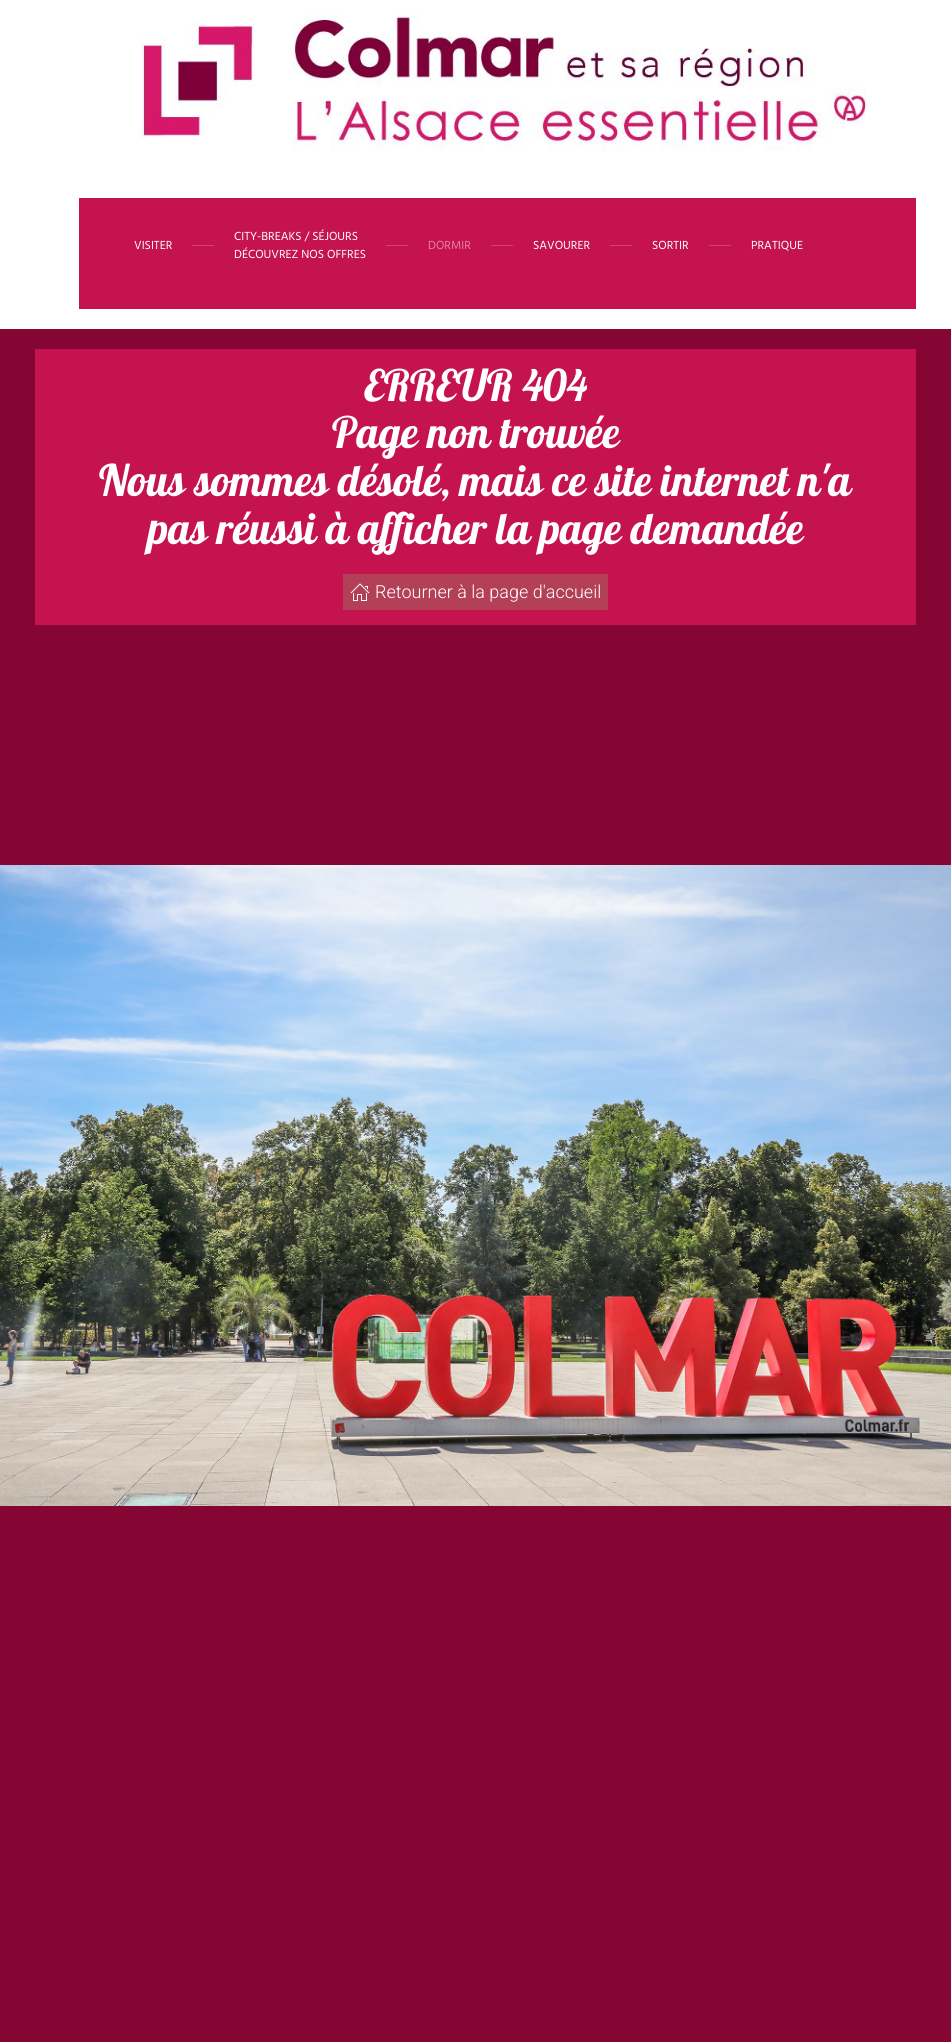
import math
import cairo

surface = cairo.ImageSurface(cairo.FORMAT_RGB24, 951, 2042)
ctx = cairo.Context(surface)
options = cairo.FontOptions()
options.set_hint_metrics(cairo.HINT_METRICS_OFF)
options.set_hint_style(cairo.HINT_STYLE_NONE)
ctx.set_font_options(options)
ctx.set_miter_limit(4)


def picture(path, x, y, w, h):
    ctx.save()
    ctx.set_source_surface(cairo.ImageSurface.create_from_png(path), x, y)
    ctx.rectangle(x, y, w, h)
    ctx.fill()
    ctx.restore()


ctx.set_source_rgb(1, 1, 1)
ctx.paint()
picture("img1.png", 140, 10, 727, 141)
ctx.set_source_rgb(0.773, 0.075, 0.31)
ctx.rectangle(79, 198, 837, 111)
ctx.fill()
ctx.select_font_face("Hind")
ctx.set_font_size(12)
ctx.set_source_rgb(1, 1, 1)
ctx.move_to(134, 249)
ctx.show_text("VISITER")
ctx.set_source_rgb(0.82, 0.259, 0.447)
ctx.rectangle(192, 245, 22, 1)
ctx.fill()
ctx.set_source_rgb(1, 1, 1)
ctx.move_to(234, 240)
ctx.show_text("CITY-BREAKS / SÉJOURS")
ctx.move_to(234, 258)
ctx.show_text("DÉCOUVREZ NOS OFFRES")
ctx.set_source_rgb(0.82, 0.259, 0.447)
ctx.rectangle(386, 245, 22, 1)
ctx.fill()
ctx.set_source_rgb(0.902, 0.51, 0.612)
ctx.move_to(428, 249)
ctx.show_text("DORMIR")
ctx.set_source_rgb(0.82, 0.259, 0.447)
ctx.rectangle(491, 245, 22, 1)
ctx.fill()
ctx.set_source_rgb(1, 1, 1)
ctx.move_to(533, 249)
ctx.show_text("SAVOURER")
ctx.set_source_rgb(0.82, 0.259, 0.447)
ctx.rectangle(610, 245, 22, 1)
ctx.fill()
ctx.set_source_rgb(1, 1, 1)
ctx.move_to(652, 249)
ctx.show_text("SORTIR")
ctx.set_source_rgb(0.82, 0.259, 0.447)
ctx.rectangle(709, 245, 22, 1)
ctx.fill()
ctx.set_source_rgb(1, 1, 1)
ctx.move_to(751, 249)
ctx.show_text("PRATIQUE")
ctx.set_source_rgb(0.522, 0.024, 0.196)
ctx.rectangle(0, 329, 951, 1713)
ctx.fill()
picture("img2.png", 0, 865, 951, 641)
ctx.set_source_rgb(0.773, 0.075, 0.31)
ctx.rectangle(35, 349, 881, 276)
ctx.fill()
ctx.select_font_face("Pattaya")
ctx.set_font_size(43.3)
ctx.set_source_rgb(1, 1, 1)
ctx.move_to(364, 401)
ctx.show_text("ERREUR 404")
ctx.move_to(332, 448)
ctx.show_text("Page non trouvée")
ctx.move_to(99, 496)
ctx.show_text("Nous sommes désolé, mais ce site internet n'a")
ctx.move_to(148, 544)
ctx.show_text("pas réussi à afficher la page demandée")
ctx.set_source_rgb(0.706, 0.251, 0.341)
ctx.rectangle(343, 574, 265, 36)
ctx.fill()
picture("img3.png", 350, 583, 20, 18)
ctx.select_font_face("Roboto Light")
ctx.set_font_size(18)
ctx.set_source_rgb(1, 1, 1)
ctx.move_to(375, 598)
ctx.show_text("Retourner à la page d'accueil")
surface.write_to_png("page.png")
